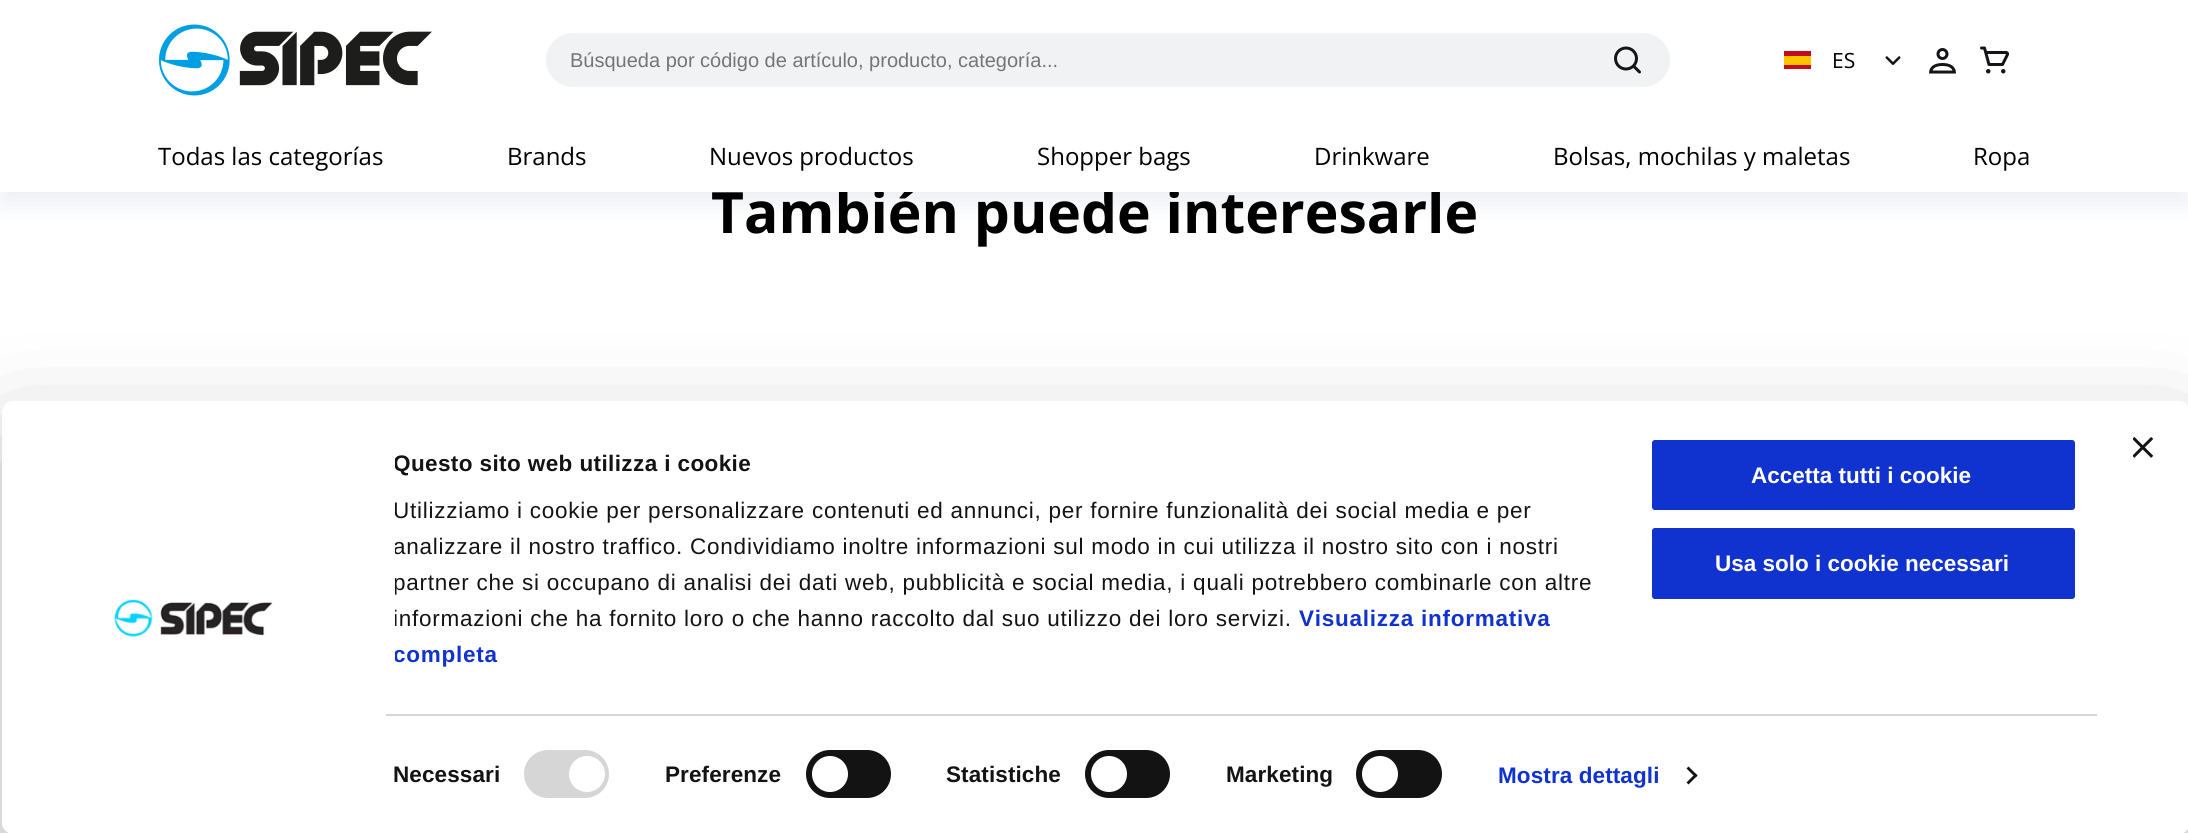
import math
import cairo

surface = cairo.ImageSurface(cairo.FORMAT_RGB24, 2188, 833)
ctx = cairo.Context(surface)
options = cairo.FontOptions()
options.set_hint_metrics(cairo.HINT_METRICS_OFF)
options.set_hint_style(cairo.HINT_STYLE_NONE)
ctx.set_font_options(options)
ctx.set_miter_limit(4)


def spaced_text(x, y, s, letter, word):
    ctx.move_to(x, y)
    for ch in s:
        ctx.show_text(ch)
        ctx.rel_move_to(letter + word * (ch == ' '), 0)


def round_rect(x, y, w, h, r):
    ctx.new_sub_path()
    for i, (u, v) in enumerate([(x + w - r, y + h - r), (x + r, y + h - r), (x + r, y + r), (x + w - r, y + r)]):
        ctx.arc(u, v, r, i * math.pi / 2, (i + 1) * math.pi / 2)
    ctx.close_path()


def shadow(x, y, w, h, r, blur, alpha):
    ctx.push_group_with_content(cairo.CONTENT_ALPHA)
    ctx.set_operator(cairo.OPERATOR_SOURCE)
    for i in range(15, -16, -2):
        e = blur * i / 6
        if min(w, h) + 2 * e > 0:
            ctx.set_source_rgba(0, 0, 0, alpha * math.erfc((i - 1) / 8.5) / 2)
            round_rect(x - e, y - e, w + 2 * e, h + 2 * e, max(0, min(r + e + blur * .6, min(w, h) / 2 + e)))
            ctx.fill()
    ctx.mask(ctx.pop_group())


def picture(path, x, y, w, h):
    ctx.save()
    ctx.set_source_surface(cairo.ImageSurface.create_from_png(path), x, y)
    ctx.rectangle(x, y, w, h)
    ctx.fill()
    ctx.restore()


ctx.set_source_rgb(1, 1, 1)
ctx.paint()
ctx.set_source_rgb(0.094, 0.196, 0.451)
shadow(0, 12, 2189, 192, 0, 12, 0.08)
ctx.select_font_face("Open Sans", cairo.FONT_SLANT_NORMAL, cairo.FONT_WEIGHT_BOLD)
ctx.set_font_size(57)
ctx.set_source_rgb(0, 0, 0)
ctx.move_to(711, 233)
ctx.show_text("También puede interesarle")
ctx.set_source_rgb(1, 1, 1)
ctx.rectangle(0, 0, 2188, 192)
ctx.fill()
picture("img1.png", 159, 24, 273, 72)
ctx.set_source_rgb(0.945, 0.949, 0.957)
round_rect(546, 33, 1124, 54, 27)
ctx.fill()
ctx.select_font_face("Liberation Sans")
ctx.set_font_size(20)
ctx.set_source_rgb(0.459, 0.459, 0.459)
ctx.move_to(570, 67)
ctx.show_text("Búsqueda por código de artículo, producto, categoría...")
picture("img2.png", 1614, 46, 27, 28)
ctx.set_source_rgb(0.776, 0.043, 0.118)
ctx.rectangle(1784, 51, 27, 18)
ctx.fill()
ctx.set_source_rgb(1, 0.769, 0)
ctx.rectangle(1784, 56, 27, 9)
ctx.fill()
ctx.select_font_face("Open Sans")
ctx.set_font_size(21)
ctx.set_source_rgb(0, 0, 0)
ctx.move_to(1832, 68)
ctx.show_text("ES")
picture("img3.png", 1885, 56, 16, 9)
picture("img4.png", 1929, 48, 27, 26)
picture("img5.png", 1980, 46, 30, 28)
ctx.set_font_size(24)
ctx.move_to(158, 165)
ctx.show_text("Todas las categorías")
ctx.move_to(507, 165)
ctx.show_text("Brands")
ctx.move_to(709, 165)
ctx.show_text("Nuevos productos")
ctx.move_to(1037, 165)
ctx.show_text("Shopper bags")
ctx.move_to(1314, 165)
ctx.show_text("Drinkware")
ctx.move_to(1553, 165)
ctx.show_text("Bolsas, mochilas y maletas")
ctx.move_to(1973, 165)
ctx.show_text("Ropa")
ctx.save()
ctx.set_fill_rule(cairo.FILL_RULE_EVEN_ODD)
ctx.new_path()
ctx.move_to(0, 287)
ctx.line_to(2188, 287)
ctx.line_to(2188, 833)
ctx.line_to(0, 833)
ctx.close_path()
ctx.move_to(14, 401)
ctx.line_to(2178, 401)
ctx.curve_to(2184.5, 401, 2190, 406.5, 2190, 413)
ctx.line_to(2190, 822)
ctx.curve_to(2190, 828.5, 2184.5, 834, 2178, 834)
ctx.line_to(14, 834)
ctx.curve_to(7.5, 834, 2, 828.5, 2, 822)
ctx.line_to(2, 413)
ctx.curve_to(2, 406.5, 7.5, 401, 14, 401)
ctx.close_path()
ctx.clip()
ctx.set_source_rgb(0, 0, 0)
shadow(2, 446, 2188, 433, 12, 52.5, 0.3)
ctx.restore()
ctx.set_source_rgb(1, 1, 1)
round_rect(2, 401, 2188, 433, 12)
ctx.fill()
picture("img6.png", 2133, 437, 21, 21)
ctx.save()
ctx.rectangle(395, 446, 1231, 226)
ctx.clip()
ctx.select_font_face("Liberation Sans", cairo.FONT_SLANT_NORMAL, cairo.FONT_WEIGHT_BOLD)
ctx.set_font_size(22.5)
ctx.set_source_rgb(0.078, 0.078, 0.078)
spaced_text(393, 471, "Questo sito web utilizza i cookie", 0.4, 0)
ctx.select_font_face("Liberation Sans")
spaced_text(393, 518, "Utilizziamo i cookie per personalizzare contenuti ed annunci, per fornire funzionalità dei social media e per", 0.75, 0)
spaced_text(393, 554, "analizzare il nostro traffico. Condividiamo inoltre informazioni sul modo in cui utilizza il nostro sito con i nostri", 0.75, 0)
spaced_text(393, 590, "partner che si occupano di analisi dei dati web, pubblicità e social media, i quali potrebbero combinarle con altre", 0.75, 0)
spaced_text(393, 626, "informazioni che ha fornito loro o che hanno raccolto dal suo utilizzo dei loro servizi.", 0.75, 0)
ctx.restore()
ctx.select_font_face("Liberation Sans", cairo.FONT_SLANT_NORMAL, cairo.FONT_WEIGHT_BOLD)
ctx.set_font_size(22.5)
ctx.set_source_rgb(0.063, 0.196, 0.812)
spaced_text(1299, 626, "Visualizza informativa", 0.75, 0)
ctx.save()
ctx.rectangle(395, 446, 1231, 226)
ctx.clip()
spaced_text(393, 662, "completa", 0.75, 0)
ctx.restore()
ctx.set_source_rgb(0.839, 0.839, 0.839)
ctx.rectangle(386, 714, 1711, 2)
ctx.fill()
ctx.set_source_rgb(0.078, 0.078, 0.078)
spaced_text(393, 782, "Necessari", 0.1, 0)
ctx.set_source_rgb(0.839, 0.839, 0.839)
round_rect(524, 750, 85, 48, 24)
ctx.fill()
ctx.set_source_rgb(1, 1, 1)
ctx.arc(587, 774, 18, 0, 2 * math.pi)
ctx.fill()
ctx.set_source_rgb(0.078, 0.078, 0.078)
spaced_text(665, 782, "Preferenze", 0.1, 0)
round_rect(806, 750, 85, 48, 24)
ctx.fill()
ctx.set_source_rgb(1, 1, 1)
ctx.arc(830, 774, 18, 0, 2 * math.pi)
ctx.fill()
ctx.set_source_rgb(0.078, 0.078, 0.078)
spaced_text(946, 782, "Statistiche", 0.1, 0)
round_rect(1085, 750, 85, 48, 24)
ctx.fill()
ctx.set_source_rgb(1, 1, 1)
ctx.arc(1109, 774, 18, 0, 2 * math.pi)
ctx.fill()
ctx.set_source_rgb(0.078, 0.078, 0.078)
spaced_text(1226, 782, "Marketing", 0.1, 0)
round_rect(1356, 750, 86, 48, 24)
ctx.fill()
ctx.set_source_rgb(1, 1, 1)
ctx.arc(1380, 774, 18, 0, 2 * math.pi)
ctx.fill()
ctx.set_source_rgb(0.063, 0.196, 0.812)
spaced_text(1498, 783, "Mostra dettagli", 0.1, 0)
ctx.set_source_rgb(0.078, 0.078, 0.078)
ctx.new_path()
ctx.move_to(1688.5, 766.5)
ctx.line_to(1697.5, 775.5)
ctx.line_to(1695.5, 777.5)
ctx.line_to(1686.5, 768.5)
ctx.close_path()
ctx.fill()
ctx.new_path()
ctx.move_to(1695.5, 773.5)
ctx.line_to(1697.5, 775.5)
ctx.line_to(1688.5, 784.5)
ctx.line_to(1686.5, 782.5)
ctx.close_path()
ctx.fill()
ctx.set_source_rgb(0.063, 0.196, 0.812)
round_rect(1650.5, 438.5, 426, 73, 4.5)
ctx.fill_preserve()
ctx.set_source_rgb(1, 1, 1)
ctx.set_line_width(3)
ctx.stroke()
ctx.move_to(1751, 483)
ctx.show_text("Accetta tutti i cookie")
ctx.set_source_rgb(0.063, 0.196, 0.812)
round_rect(1650.5, 526.5, 426, 74, 4.5)
ctx.fill_preserve()
ctx.set_source_rgb(1, 1, 1)
ctx.stroke()
ctx.move_to(1715, 571)
ctx.show_text("Usa solo i cookie necessari")
picture("img7.png", 114, 599, 159, 38)
surface.write_to_png("page.png")
